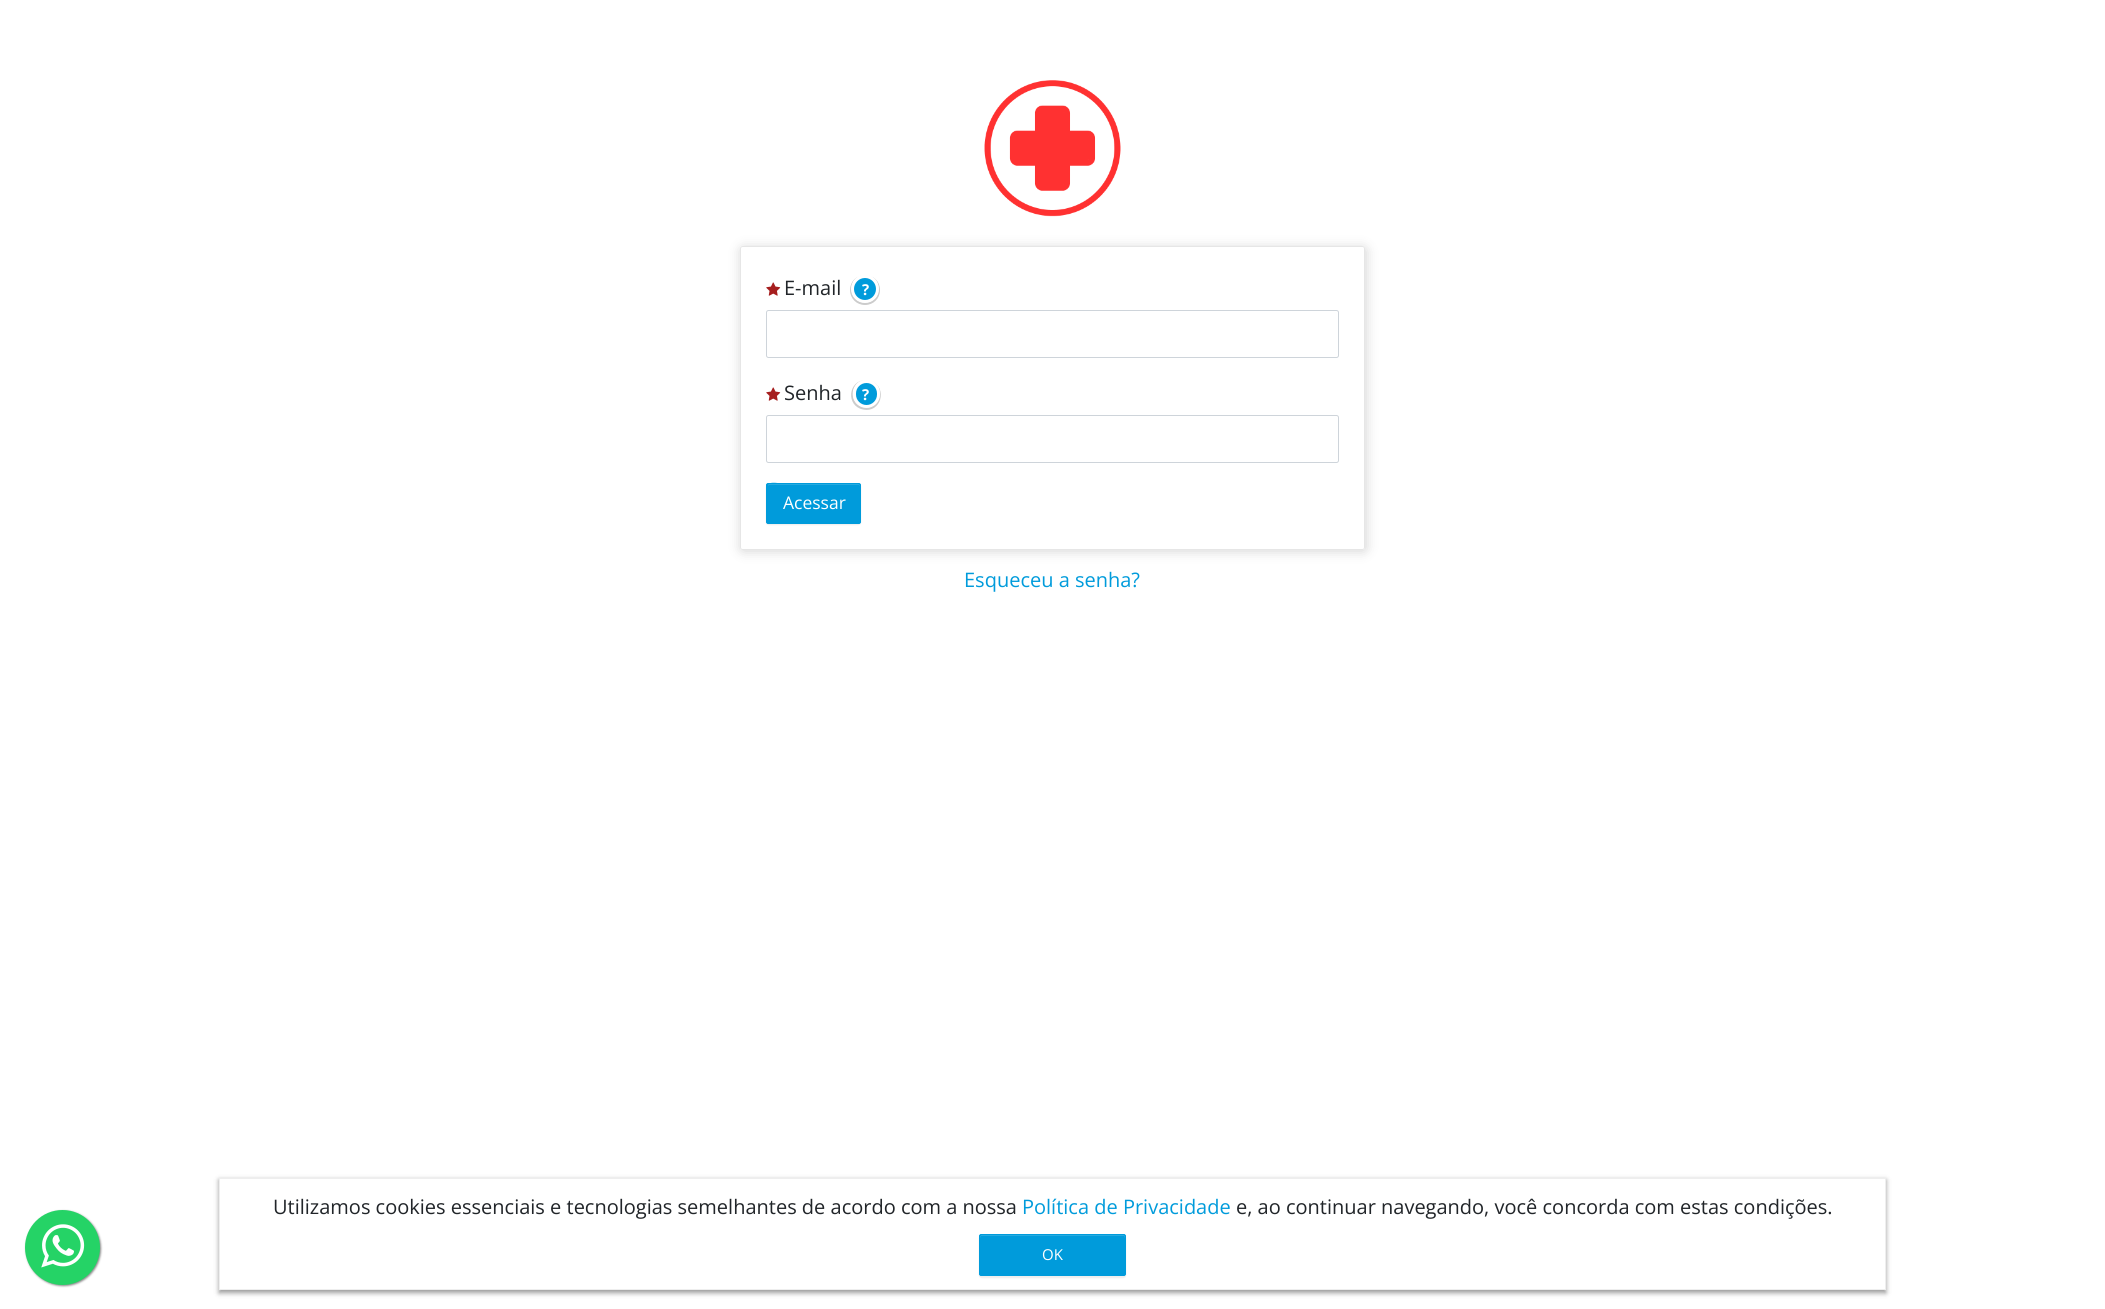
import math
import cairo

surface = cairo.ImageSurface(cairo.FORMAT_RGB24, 2105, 1309)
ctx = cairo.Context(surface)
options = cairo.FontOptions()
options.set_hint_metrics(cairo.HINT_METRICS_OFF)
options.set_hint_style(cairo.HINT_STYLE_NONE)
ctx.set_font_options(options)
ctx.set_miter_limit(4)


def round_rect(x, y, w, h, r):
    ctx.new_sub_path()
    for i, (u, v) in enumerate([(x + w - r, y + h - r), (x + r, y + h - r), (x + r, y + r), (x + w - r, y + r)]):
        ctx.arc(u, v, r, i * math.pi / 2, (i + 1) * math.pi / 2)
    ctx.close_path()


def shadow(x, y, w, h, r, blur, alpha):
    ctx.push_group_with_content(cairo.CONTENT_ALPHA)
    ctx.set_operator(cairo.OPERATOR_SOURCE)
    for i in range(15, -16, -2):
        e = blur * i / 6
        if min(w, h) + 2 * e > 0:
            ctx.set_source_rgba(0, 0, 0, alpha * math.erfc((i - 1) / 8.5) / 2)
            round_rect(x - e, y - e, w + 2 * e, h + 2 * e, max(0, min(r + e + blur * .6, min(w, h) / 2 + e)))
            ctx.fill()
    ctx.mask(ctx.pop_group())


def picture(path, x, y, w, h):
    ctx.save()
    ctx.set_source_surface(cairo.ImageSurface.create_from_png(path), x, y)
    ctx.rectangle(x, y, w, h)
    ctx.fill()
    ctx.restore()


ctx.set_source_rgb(1, 1, 1)
ctx.paint()
picture("img1.png", 984, 80, 137, 137)
ctx.save()
ctx.set_fill_rule(cairo.FILL_RULE_EVEN_ODD)
ctx.new_path()
ctx.move_to(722, 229)
ctx.line_to(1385, 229)
ctx.line_to(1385, 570)
ctx.line_to(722, 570)
ctx.close_path()
ctx.move_to(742.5, 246)
ctx.line_to(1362.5, 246)
ctx.curve_to(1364, 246, 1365, 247, 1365, 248.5)
ctx.line_to(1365, 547.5)
ctx.curve_to(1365, 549, 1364, 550, 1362.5, 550)
ctx.line_to(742.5, 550)
ctx.curve_to(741, 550, 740, 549, 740, 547.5)
ctx.line_to(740, 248.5)
ctx.curve_to(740, 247, 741, 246, 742.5, 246)
ctx.close_path()
ctx.clip()
ctx.set_source_rgb(0.106, 0.106, 0.106)
shadow(741, 248, 625, 303, 2.5, 6, 0.2)
ctx.restore()
round_rect(740.5, 246.5, 624, 303, 2)
ctx.set_source_rgb(0.902, 0.902, 0.902)
ctx.set_line_width(1)
ctx.stroke()
picture("img2.png", 766, 282, 15, 14)
ctx.select_font_face("Open Sans")
ctx.set_font_size(20)
ctx.set_source_rgb(0.129, 0.145, 0.161)
ctx.move_to(784, 295)
ctx.show_text("E-mail")
ctx.set_source_rgb(0.8, 0.8, 0.8)
ctx.set_fill_rule(cairo.FILL_RULE_EVEN_ODD)
ctx.new_path()
ctx.move_to(865, 275)
ctx.curve_to(856.5, 275, 850, 281.5, 850, 290)
ctx.curve_to(850, 298.5, 856.5, 305, 865, 305)
ctx.curve_to(873.5, 305, 880, 298.5, 880, 290)
ctx.curve_to(880, 281.5, 873.5, 275, 865, 275)
ctx.close_path()
ctx.move_to(865, 275)
ctx.curve_to(847, 275, 847, 302.5, 865, 302.5)
ctx.curve_to(883, 302.5, 883, 275, 865, 275)
ctx.close_path()
ctx.fill()
ctx.set_source_rgb(0, 0.608, 0.859)
ctx.arc(865, 289, 12.5, 0, 2 * math.pi)
ctx.fill_preserve()
ctx.set_source_rgb(1, 1, 1)
ctx.set_line_width(3)
ctx.stroke()
ctx.select_font_face("Open Sans", cairo.FONT_SLANT_NORMAL, cairo.FONT_WEIGHT_BOLD)
ctx.set_font_size(15)
ctx.move_to(862, 295)
ctx.show_text("?")
round_rect(766.5, 310.5, 572, 47, 2)
ctx.set_source_rgb(0.808, 0.831, 0.855)
ctx.set_line_width(1)
ctx.stroke()
picture("img2.png", 766, 387, 15, 14)
ctx.select_font_face("Open Sans")
ctx.set_font_size(20)
ctx.set_source_rgb(0.129, 0.145, 0.161)
ctx.move_to(784, 400)
ctx.show_text("Senha")
ctx.set_source_rgb(0.8, 0.8, 0.8)
ctx.set_fill_rule(cairo.FILL_RULE_WINDING)
ctx.new_path()
ctx.move_to(866, 380)
ctx.curve_to(848, 380, 845.5, 406, 863, 409.5)
ctx.curve_to(881, 413.5, 888, 388, 871.5, 381)
ctx.curve_to(886.5, 387.5, 879.5, 410.5, 863.5, 407)
ctx.curve_to(847.5, 404, 850, 380, 866, 380)
ctx.close_path()
ctx.fill()
ctx.set_source_rgb(0, 0.608, 0.859)
round_rect(854.5, 381.5, 24, 25, 12)
ctx.fill_preserve()
ctx.set_source_rgb(1, 1, 1)
ctx.set_line_width(3)
ctx.stroke()
ctx.select_font_face("Open Sans", cairo.FONT_SLANT_NORMAL, cairo.FONT_WEIGHT_BOLD)
ctx.set_font_size(15)
ctx.move_to(862, 400)
ctx.show_text("?")
round_rect(766.5, 415.5, 572, 47, 2)
ctx.set_source_rgb(0.808, 0.831, 0.855)
ctx.set_line_width(1)
ctx.stroke()
ctx.set_source_rgb(0, 0, 0)
shadow(766, 484, 95, 41, 2.5, 0.5, 0.07)
ctx.set_source_rgb(0, 0.608, 0.859)
round_rect(766, 483, 95, 41, 2.5)
ctx.fill()
ctx.set_source_rgb(0.149, 0.667, 0.878)
ctx.new_path()
ctx.move_to(769, 485)
ctx.line_to(859, 485)
ctx.line_to(860, 486)
ctx.curve_to(860, 485, 860, 484, 859, 484)
ctx.line_to(784, 484)
ctx.curve_to(782, 484, 768, 480, 768, 486)
ctx.close_path()
ctx.fill()
round_rect(766.5, 483.5, 94, 40, 2)
ctx.set_source_rgb(0, 0.608, 0.859)
ctx.stroke()
ctx.select_font_face("Open Sans")
ctx.set_font_size(17.5)
ctx.set_source_rgb(1, 1, 1)
ctx.move_to(783, 509)
ctx.show_text("Acessar")
ctx.set_font_size(20)
ctx.set_source_rgb(0, 0.608, 0.859)
ctx.move_to(964, 587)
ctx.show_text("Esqueceu a senha?")
ctx.set_source_rgb(0.533, 0.533, 0.533)
shadow(26, 1211, 75, 75, 37.5, 1, 1)
ctx.set_source_rgb(0.145, 0.827, 0.4)
ctx.arc(62.5, 1247.5, 37.5, 0, 2 * math.pi)
ctx.fill()
picture("img3.png", 41, 1224, 44, 44)
ctx.save()
ctx.set_fill_rule(cairo.FILL_RULE_EVEN_ODD)
ctx.new_path()
ctx.move_to(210, 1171)
ctx.line_to(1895, 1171)
ctx.line_to(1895, 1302)
ctx.line_to(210, 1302)
ctx.close_path()
ctx.move_to(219, 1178)
ctx.line_to(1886, 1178)
ctx.line_to(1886, 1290)
ctx.line_to(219, 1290)
ctx.close_path()
ctx.clip()
ctx.set_source_rgb(0, 0, 0)
shadow(219, 1180, 1667, 113, 0, 2.5, 0.4)
ctx.restore()
ctx.rectangle(219.5, 1178.5, 1666, 111)
ctx.set_source_rgb(0.933, 0.933, 0.933)
ctx.stroke()
ctx.set_source_rgb(0.129, 0.145, 0.161)
ctx.move_to(273, 1214)
ctx.show_text("Utilizamos cookies essenciais e tecnologias semelhantes de acordo com a nossa")
ctx.set_source_rgb(0, 0.608, 0.859)
ctx.move_to(1022, 1214)
ctx.show_text("Política de Privacidade")
ctx.set_source_rgb(0.129, 0.145, 0.161)
ctx.move_to(1236, 1214)
ctx.show_text("e, ao continuar navegando, você concorda com estas condições.")
ctx.set_source_rgb(0, 0, 0)
shadow(979, 1235, 147, 43, 2.5, 0.5, 0.07)
ctx.set_source_rgb(0, 0.608, 0.859)
round_rect(979, 1234, 147, 42, 2.5)
ctx.fill()
ctx.set_source_rgb(0.149, 0.667, 0.878)
ctx.new_path()
ctx.move_to(981, 1236)
ctx.line_to(1124, 1236)
ctx.line_to(1125, 1238)
ctx.curve_to(1125, 1237, 1125, 1235, 1124, 1235)
ctx.line_to(981, 1235)
ctx.curve_to(980, 1236, 980, 1237, 980, 1238)
ctx.close_path()
ctx.fill()
round_rect(979.5, 1234.5, 146, 41, 2)
ctx.set_source_rgb(0, 0.608, 0.859)
ctx.stroke()
ctx.set_font_size(15)
ctx.set_source_rgb(1, 1, 1)
ctx.move_to(1042, 1260)
ctx.show_text("OK")
surface.write_to_png("page.png")
